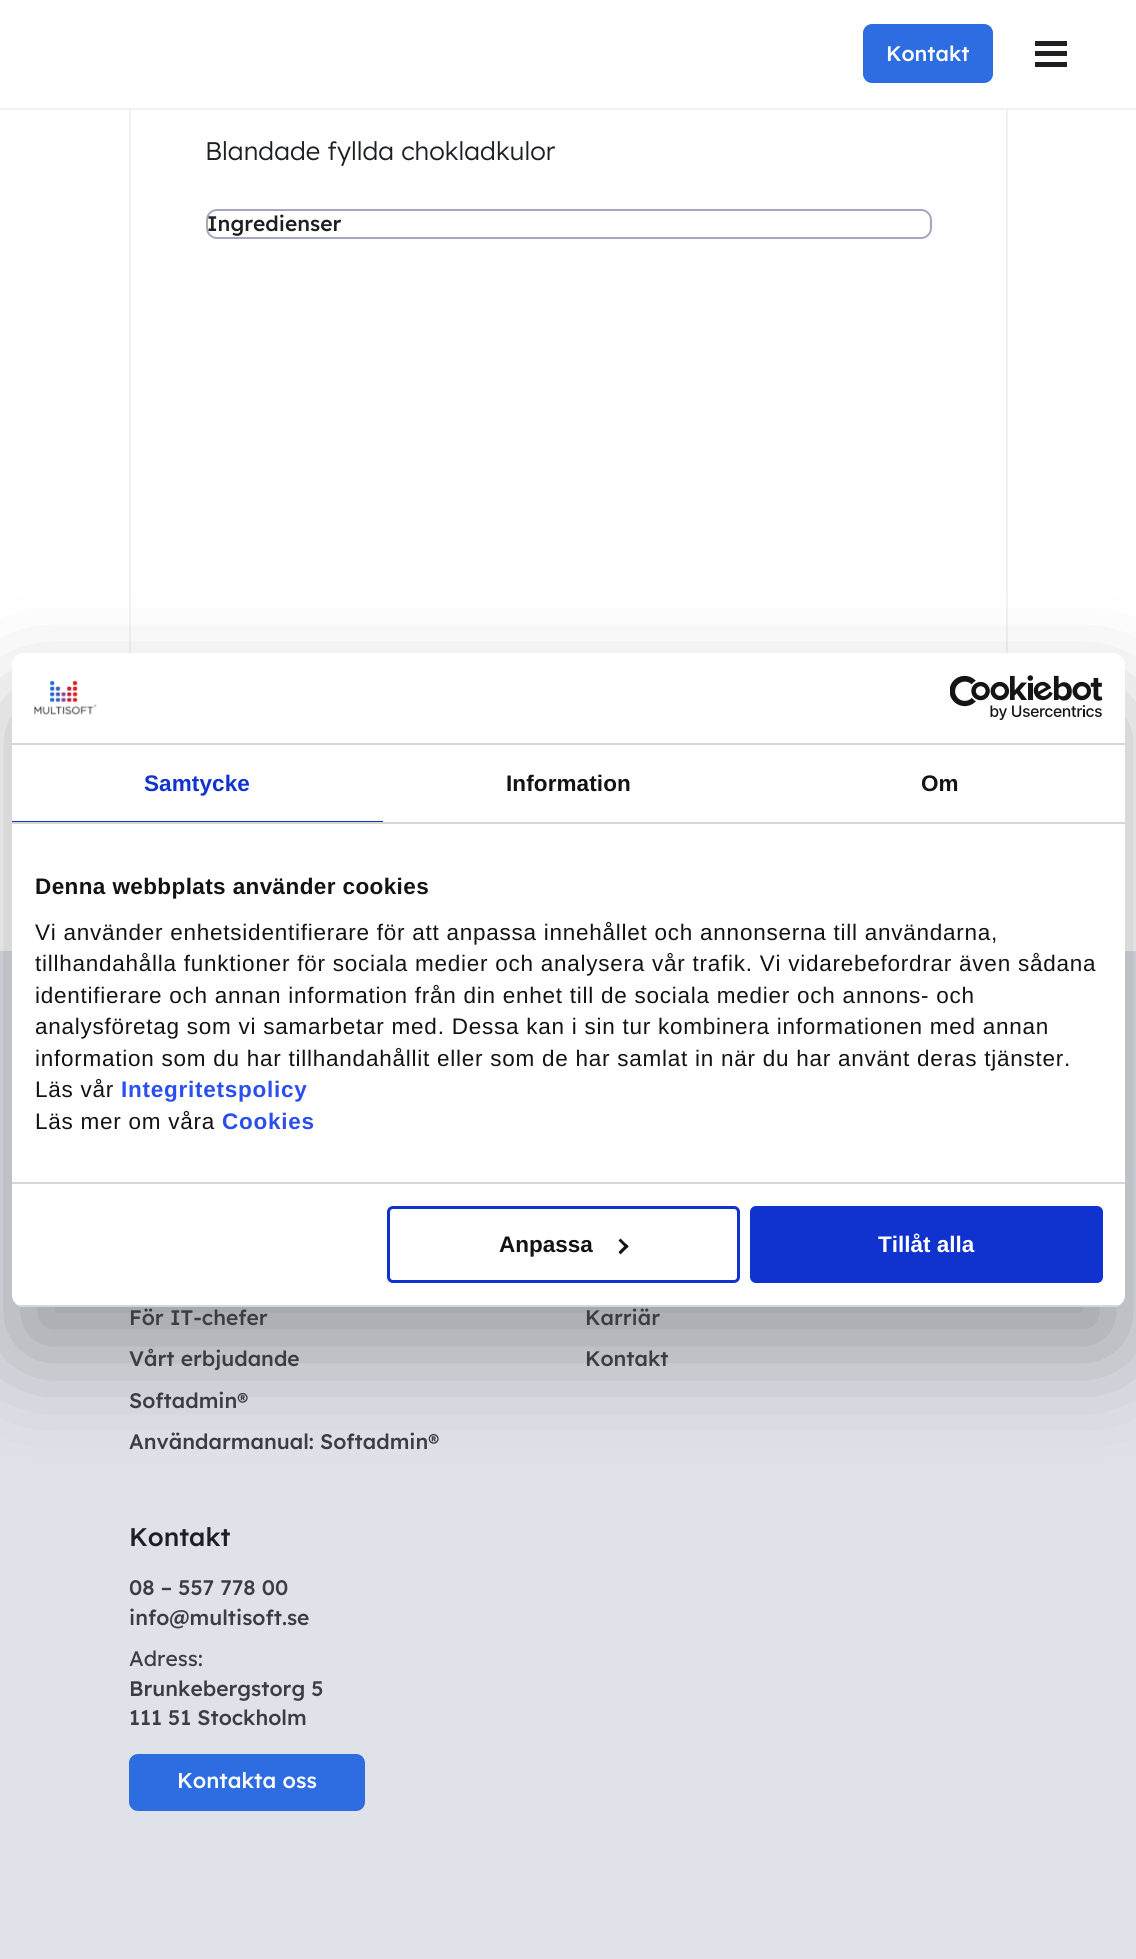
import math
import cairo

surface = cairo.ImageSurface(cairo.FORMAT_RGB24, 1136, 1959)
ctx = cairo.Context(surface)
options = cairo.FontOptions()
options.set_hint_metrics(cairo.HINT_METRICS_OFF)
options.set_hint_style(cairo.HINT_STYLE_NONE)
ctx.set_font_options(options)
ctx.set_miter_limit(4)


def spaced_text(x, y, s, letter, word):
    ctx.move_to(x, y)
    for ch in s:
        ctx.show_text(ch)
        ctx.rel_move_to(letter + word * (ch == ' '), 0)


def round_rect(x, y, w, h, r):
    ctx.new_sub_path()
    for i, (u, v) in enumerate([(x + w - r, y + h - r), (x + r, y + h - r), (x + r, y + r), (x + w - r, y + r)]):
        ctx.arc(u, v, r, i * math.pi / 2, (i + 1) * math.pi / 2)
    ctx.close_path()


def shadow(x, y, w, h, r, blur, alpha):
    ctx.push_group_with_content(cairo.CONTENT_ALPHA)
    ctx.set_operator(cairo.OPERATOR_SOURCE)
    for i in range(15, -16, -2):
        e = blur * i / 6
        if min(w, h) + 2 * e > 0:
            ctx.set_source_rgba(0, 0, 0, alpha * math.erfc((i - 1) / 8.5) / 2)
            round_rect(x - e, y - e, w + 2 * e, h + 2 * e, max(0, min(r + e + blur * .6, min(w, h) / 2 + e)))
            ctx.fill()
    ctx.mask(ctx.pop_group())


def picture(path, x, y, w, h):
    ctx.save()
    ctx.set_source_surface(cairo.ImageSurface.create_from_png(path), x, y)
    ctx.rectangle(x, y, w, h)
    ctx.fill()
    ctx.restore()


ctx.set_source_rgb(1, 1, 1)
ctx.paint()
ctx.rectangle(130, -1, 877, 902)
ctx.set_source_rgb(0.949, 0.949, 0.949)
ctx.stroke()
ctx.set_source_rgb(1, 1, 1)
ctx.rectangle(129, 0, 879, 108)
ctx.fill()
ctx.set_source_rgb(0.949, 0.949, 0.949)
ctx.rectangle(0, 108, 1136, 2)
ctx.fill()
ctx.set_source_rgb(0.176, 0.424, 0.882)
round_rect(863, 24, 130, 59, 9)
ctx.fill()
ctx.select_font_face("Lexend Medium")
ctx.set_font_size(21)
ctx.set_source_rgb(1, 1, 1)
ctx.move_to(886, 61)
ctx.show_text("Kontakt")
ctx.set_source_rgb(0.114, 0.122, 0.137)
ctx.rectangle(1035, 51, 32, 5)
ctx.fill()
ctx.rectangle(1035, 41, 32, 5)
ctx.fill()
ctx.rectangle(1035, 62, 32, 5)
ctx.fill()
ctx.select_font_face("Lexend Light")
ctx.set_font_size(25.5)
ctx.move_to(205, 160)
ctx.show_text("Blandade fyllda chokladkulor")
round_rect(207, 210, 724, 28, 10)
ctx.set_source_rgb(0.639, 0.663, 0.733)
ctx.stroke()
ctx.select_font_face("Lexend Medium")
ctx.set_font_size(21)
ctx.set_source_rgb(0.114, 0.122, 0.137)
ctx.move_to(207, 231)
ctx.show_text("Ingredienser")
ctx.set_source_rgb(0.875, 0.89, 0.914)
ctx.rectangle(0, 951, 1136, 1008)
ctx.fill()
ctx.set_source_rgb(0, 0, 0)
shadow(12, 701, 1113, 654, 12, 51, 0.3)
ctx.set_source_rgb(1, 1, 1)
round_rect(12, 653, 1113, 654, 12)
ctx.fill()
ctx.set_source_rgb(0.839, 0.839, 0.839)
ctx.rectangle(12, 743, 1113, 2)
ctx.fill()
picture("img1.png", 34, 680, 63, 35)
picture("img2.png", 950, 675, 153, 45)
ctx.rectangle(12, 822, 1113, 2)
ctx.fill()
ctx.set_source_rgb(0.063, 0.196, 0.812)
ctx.rectangle(12, 821, 371, 1)
ctx.fill()
ctx.select_font_face("Liberation Sans", cairo.FONT_SLANT_NORMAL, cairo.FONT_WEIGHT_BOLD)
ctx.set_font_size(22.5)
spaced_text(144, 791, "Samtycke", 0.1, 0)
ctx.set_source_rgb(0.078, 0.078, 0.078)
spaced_text(506, 791, "Information", 0.1, 0)
spaced_text(921, 791, "Om", 0.1, 0)
ctx.set_source_rgb(0.839, 0.839, 0.839)
ctx.rectangle(12, 1182, 1113, 2)
ctx.fill()
ctx.set_source_rgb(0.078, 0.078, 0.078)
spaced_text(35, 894, "Denna webbplats använder cookies", 0.4, 0)
ctx.select_font_face("Liberation Sans")
spaced_text(35, 940, "Vi använder enhetsidentifierare för att anpassa innehållet och annonserna till användarna,", 0.75, 0)
spaced_text(35, 971, "tillhandahålla funktioner för sociala medier och analysera vår trafik. Vi vidarebefordrar även sådana", 0.75, 0)
spaced_text(35, 1003, "identifierare och annan information från din enhet till de sociala medier och annons- och", 0.75, 0)
spaced_text(35, 1034, "analysföretag som vi samarbetar med. Dessa kan i sin tur kombinera informationen med annan", 0.75, 0)
spaced_text(35, 1066, "information som du har tillhandahållit eller som de har samlat in när du har använt deras tjänster.", 0.75, 0)
spaced_text(35, 1097, "Läs vår", 0.75, 0)
ctx.select_font_face("Liberation Sans", cairo.FONT_SLANT_NORMAL, cairo.FONT_WEIGHT_BOLD)
ctx.set_source_rgb(0.165, 0.306, 0.937)
spaced_text(121, 1097, "Integritetspolicy", 0.75, 0)
ctx.select_font_face("Liberation Sans")
ctx.set_source_rgb(0.078, 0.078, 0.078)
spaced_text(35, 1129, "Läs mer om våra", 0.75, 0)
ctx.select_font_face("Liberation Sans", cairo.FONT_SLANT_NORMAL, cairo.FONT_WEIGHT_BOLD)
ctx.set_source_rgb(0.165, 0.306, 0.937)
spaced_text(222, 1129, "Cookies", 0.75, 0)
ctx.save()
round_rect(12, 653, 1113, 654, 12)
ctx.clip()
ctx.set_source_rgb(0.839, 0.839, 0.839)
ctx.rectangle(12, 1305, 1113, 2)
ctx.fill()
ctx.restore()
round_rect(388.5, 1207.5, 350, 74, 4.5)
ctx.set_source_rgb(0.063, 0.196, 0.812)
ctx.set_line_width(3)
ctx.stroke()
ctx.set_source_rgb(0.078, 0.078, 0.078)
ctx.move_to(499, 1252)
ctx.show_text("Anpassa")
ctx.new_path()
ctx.move_to(620.5, 1238.5)
ctx.line_to(628.5, 1246.5)
ctx.line_to(626.5, 1248.5)
ctx.line_to(618.5, 1240.5)
ctx.close_path()
ctx.fill()
ctx.new_path()
ctx.move_to(626.5, 1244)
ctx.line_to(628.5, 1246.5)
ctx.line_to(620.5, 1254.5)
ctx.line_to(618.5, 1252)
ctx.close_path()
ctx.fill()
ctx.set_source_rgb(0.063, 0.196, 0.812)
round_rect(751.5, 1207.5, 350, 74, 4.5)
ctx.fill_preserve()
ctx.stroke()
ctx.set_source_rgb(1, 1, 1)
ctx.move_to(878, 1252)
ctx.show_text("Tillåt alla")
ctx.select_font_face("Lexend Medium")
ctx.set_font_size(21)
ctx.set_source_rgb(0.227, 0.239, 0.259)
ctx.move_to(129, 1325)
ctx.show_text("För IT-chefer")
ctx.move_to(129, 1366)
ctx.show_text("Vårt erbjudande")
ctx.move_to(129, 1408)
ctx.show_text("Softadmin®")
ctx.move_to(129, 1449)
ctx.show_text("Användarmanual: Softadmin®")
ctx.move_to(585, 1325)
ctx.show_text("Karriär")
ctx.move_to(585, 1366)
ctx.show_text("Kontakt")
ctx.set_font_size(25.5)
ctx.set_source_rgb(0.114, 0.122, 0.137)
ctx.move_to(129, 1546)
ctx.show_text("Kontakt")
ctx.set_font_size(21)
ctx.set_source_rgb(0.227, 0.239, 0.259)
ctx.move_to(129, 1595)
ctx.show_text("08 – 557 778 00")
ctx.move_to(129, 1625)
ctx.show_text("info@multisoft.se")
ctx.select_font_face("Lexend")
ctx.move_to(129, 1666)
ctx.show_text("Adress:")
ctx.select_font_face("Lexend Medium")
ctx.move_to(129, 1696)
ctx.show_text("Brunkebergstorg 5")
ctx.move_to(129, 1725)
ctx.show_text("111 51 Stockholm")
ctx.set_source_rgb(0.176, 0.424, 0.882)
round_rect(129, 1754, 236, 57, 9)
ctx.fill()
ctx.set_font_size(21.5)
ctx.set_source_rgb(1, 1, 1)
ctx.move_to(177, 1788)
ctx.show_text("Kontakta oss")
surface.write_to_png("page.png")
